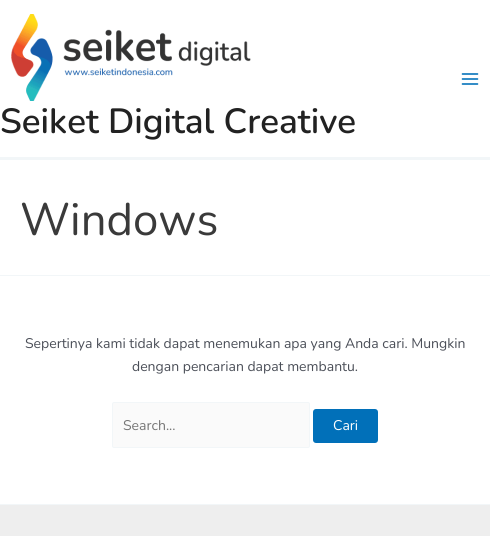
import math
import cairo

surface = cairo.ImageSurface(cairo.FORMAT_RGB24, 490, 536)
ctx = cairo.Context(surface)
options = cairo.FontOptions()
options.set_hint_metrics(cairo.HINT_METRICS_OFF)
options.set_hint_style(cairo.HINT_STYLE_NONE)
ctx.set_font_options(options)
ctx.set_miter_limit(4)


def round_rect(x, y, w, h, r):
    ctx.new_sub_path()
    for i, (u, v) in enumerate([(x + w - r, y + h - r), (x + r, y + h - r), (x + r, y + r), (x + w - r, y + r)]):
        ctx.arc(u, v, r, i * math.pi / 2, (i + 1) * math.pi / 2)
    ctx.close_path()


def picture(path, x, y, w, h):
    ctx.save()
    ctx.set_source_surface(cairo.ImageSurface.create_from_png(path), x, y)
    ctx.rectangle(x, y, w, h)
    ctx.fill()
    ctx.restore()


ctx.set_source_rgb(1, 1, 1)
ctx.paint()
ctx.set_source_rgb(0.949, 0.961, 0.969)
ctx.rectangle(0, 157, 490, 3)
ctx.fill()
picture("img1.png", 461, 73, 18, 12)
picture("img2.png", 11, 14, 240, 87)
ctx.select_font_face("Nunito SemiBold")
ctx.set_font_size(35)
ctx.set_source_rgb(0.133, 0.133, 0.133)
ctx.move_to(0, 133)
ctx.show_text("Seiket Digital Creative")
ctx.set_source_rgb(0.949, 0.961, 0.969)
ctx.rectangle(0, 275, 490, 1)
ctx.fill()
ctx.select_font_face("Nunito")
ctx.set_font_size(45.5)
ctx.set_source_rgb(0.227, 0.227, 0.227)
ctx.move_to(20, 235)
ctx.show_text("Windows")
ctx.set_font_size(14)
ctx.set_source_rgb(0.294, 0.31, 0.345)
ctx.move_to(25, 348)
ctx.show_text("Sepertinya kami tidak dapat menemukan apa yang Anda cari. Mungkin")
ctx.move_to(132, 371)
ctx.show_text("dengan pencarian dapat membantu.")
ctx.set_source_rgb(0.98, 0.98, 0.98)
round_rect(112.5, 402.5, 197, 45, 1.5)
ctx.fill_preserve()
ctx.set_source_rgb(0.949, 0.961, 0.969)
ctx.set_line_width(1)
ctx.stroke()
ctx.set_source_rgb(0.459, 0.459, 0.459)
ctx.move_to(123, 430)
ctx.show_text("Search...")
ctx.set_source_rgb(0.004, 0.439, 0.725)
round_rect(313, 409, 65, 34, 3)
ctx.fill()
ctx.set_source_rgb(1, 1, 1)
ctx.move_to(333, 430)
ctx.show_text("Cari")
ctx.set_source_rgb(0.933, 0.933, 0.933)
ctx.rectangle(0, 505, 490, 31)
ctx.fill()
ctx.set_source_rgb(0.949, 0.961, 0.969)
ctx.rectangle(0, 504, 490, 1)
ctx.fill()
surface.write_to_png("page.png")
